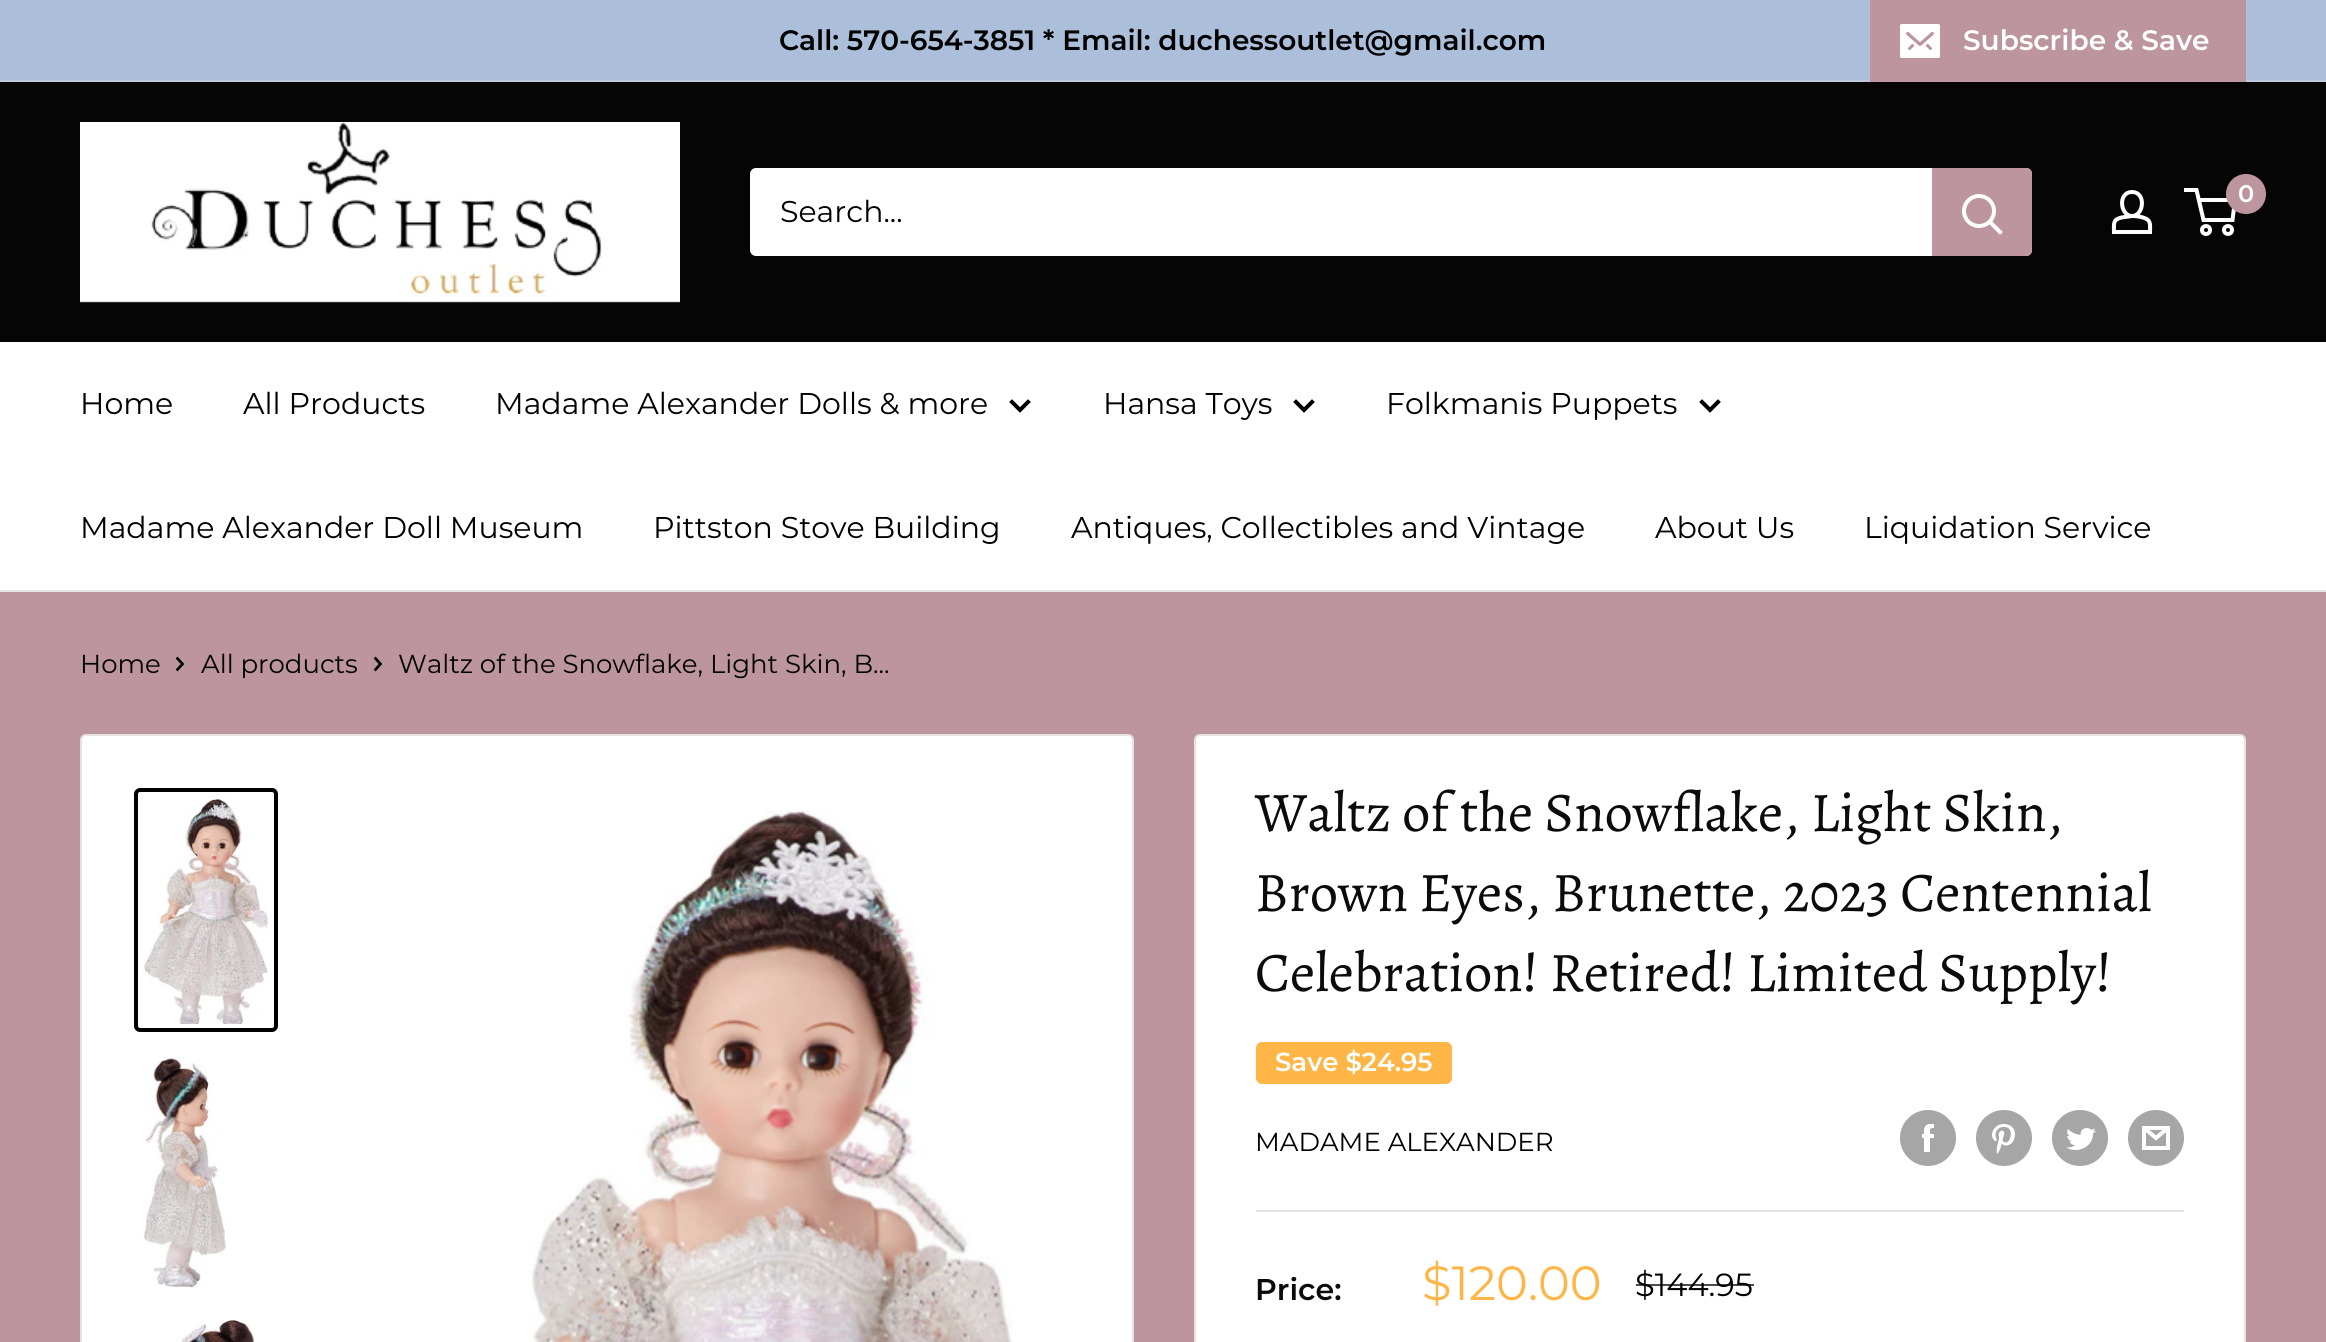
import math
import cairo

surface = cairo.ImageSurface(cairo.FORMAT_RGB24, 2326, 1342)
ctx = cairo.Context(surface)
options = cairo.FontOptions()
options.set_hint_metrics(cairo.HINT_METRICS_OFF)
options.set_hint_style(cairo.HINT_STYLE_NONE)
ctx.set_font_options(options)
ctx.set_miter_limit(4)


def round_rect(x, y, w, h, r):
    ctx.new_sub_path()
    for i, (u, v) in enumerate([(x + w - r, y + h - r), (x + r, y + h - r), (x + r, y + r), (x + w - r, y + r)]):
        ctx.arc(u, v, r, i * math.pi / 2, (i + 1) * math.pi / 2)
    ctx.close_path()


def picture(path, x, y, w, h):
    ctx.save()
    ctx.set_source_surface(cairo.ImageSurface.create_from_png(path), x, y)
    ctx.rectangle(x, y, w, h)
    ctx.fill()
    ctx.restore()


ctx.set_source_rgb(0.741, 0.584, 0.624)
ctx.paint()
ctx.set_source_rgb(0.671, 0.749, 0.855)
ctx.rectangle(0, 0, 2326, 80)
ctx.fill()
ctx.set_source_rgb(0.745, 0.792, 0.859)
ctx.rectangle(0, 80, 2326, 2)
ctx.fill()
ctx.select_font_face("Montserrat SemiBold")
ctx.set_font_size(28)
ctx.set_source_rgb(0, 0, 0)
ctx.move_to(779, 50)
ctx.show_text("Call: 570-654-3851 * Email: duchessoutlet@gmail.com")
ctx.set_source_rgb(0.741, 0.584, 0.624)
ctx.rectangle(1870, 0, 376, 82)
ctx.fill()
picture("img1.png", 1900, 24, 40, 34)
ctx.set_source_rgb(1, 1, 1)
ctx.move_to(1963, 50)
ctx.show_text("Subscribe & Save")
ctx.set_source_rgb(0.02, 0.02, 0.02)
ctx.rectangle(0, 82, 2326, 260)
ctx.fill()
picture("img2.png", 80, 122, 600, 181)
ctx.new_path()
ctx.move_to(2132, 216)
ctx.curve_to(2136, 216, 2139.5, 216.5, 2143, 217.5)
ctx.curve_to(2151.5, 220, 2150, 224.5, 2150, 232)
ctx.line_to(2114, 232)
ctx.curve_to(2114, 224, 2112.5, 219.5, 2121.5, 217.5)
ctx.close_path()
ctx.move_to(2132, 216)
ctx.curve_to(2120, 216, 2117.5, 192, 2132, 192)
ctx.curve_to(2146.5, 192, 2144, 216, 2132, 216)
ctx.close_path()
ctx.set_source_rgb(1, 1, 1)
ctx.set_line_width(4)
ctx.stroke()
ctx.arc(2206, 230, 4, 0, 2 * math.pi)
ctx.stroke()
ctx.arc(2228, 230, 4, 0, 2 * math.pi)
ctx.stroke()
ctx.new_path()
ctx.move_to(2198.5, 200)
ctx.line_to(2235, 200)
ctx.line_to(2232.5, 220)
ctx.line_to(2203.5, 220)
ctx.line_to(2196.5, 190)
ctx.line_to(2184, 190)
ctx.stroke()
ctx.set_source_rgb(0.741, 0.584, 0.624)
ctx.arc(2246, 194, 20, 0, 2 * math.pi)
ctx.fill()
ctx.set_font_size(24)
ctx.set_source_rgb(1, 1, 1)
ctx.move_to(2238, 202)
ctx.show_text("0")
round_rect(750, 168, 1282, 88, 6)
ctx.fill()
ctx.select_font_face("Montserrat")
ctx.set_font_size(30)
ctx.set_source_rgb(0, 0, 0)
ctx.move_to(780, 222)
ctx.show_text("Search...")
ctx.set_source_rgb(0.741, 0.584, 0.624)
ctx.new_path()
ctx.move_to(1932, 168)
ctx.line_to(2026, 168)
ctx.curve_to(2029.5, 168, 2032, 170.5, 2032, 174)
ctx.line_to(2032, 250)
ctx.curve_to(2032, 253.5, 2029.5, 256, 2026, 256)
ctx.line_to(1932, 256)
ctx.close_path()
ctx.fill()
ctx.new_path()
ctx.move_to(2000, 232)
ctx.line_to(1990, 222)
ctx.set_source_rgb(1, 1, 1)
ctx.set_line_cap(cairo.LINE_CAP_SQUARE)
ctx.stroke()
ctx.arc(1979, 211, 15, 0, 2 * math.pi)
ctx.set_line_cap(cairo.LINE_CAP_BUTT)
ctx.stroke()
ctx.rectangle(0, 342, 2326, 248)
ctx.fill()
ctx.set_source_rgb(0.906, 0.886, 0.871)
ctx.rectangle(0, 590, 2326, 2)
ctx.fill()
ctx.set_source_rgb(0, 0, 0)
ctx.move_to(80, 414)
ctx.show_text("Home")
ctx.move_to(243, 414)
ctx.show_text("All Products")
ctx.move_to(495, 414)
ctx.show_text("Madame Alexander Dolls & more")
ctx.new_path()
ctx.move_to(1028, 402)
ctx.line_to(1020, 410)
ctx.line_to(1012, 402)
ctx.set_line_cap(cairo.LINE_CAP_SQUARE)
ctx.stroke()
ctx.move_to(1103, 414)
ctx.show_text("Hansa Toys")
ctx.new_path()
ctx.move_to(1312, 402)
ctx.line_to(1304, 410)
ctx.line_to(1296, 402)
ctx.stroke()
ctx.move_to(1386, 414)
ctx.show_text("Folkmanis Puppets")
ctx.new_path()
ctx.move_to(1718, 402)
ctx.line_to(1710, 410)
ctx.line_to(1702, 402)
ctx.stroke()
ctx.move_to(80, 538)
ctx.show_text("Madame Alexander Doll Museum")
ctx.move_to(653, 538)
ctx.show_text("Pittston Stove Building")
ctx.move_to(1071, 538)
ctx.show_text("Antiques, Collectibles and Vintage")
ctx.move_to(1655, 538)
ctx.show_text("About Us")
ctx.move_to(1864, 538)
ctx.show_text("Liquidation Service")
ctx.set_font_size(26)
ctx.move_to(80, 673)
ctx.show_text("Home")
ctx.new_path()
ctx.move_to(177.5, 658.5)
ctx.line_to(182.5, 664)
ctx.line_to(177.5, 669.5)
ctx.set_line_width(2.7)
ctx.stroke()
ctx.move_to(201, 673)
ctx.show_text("All products")
ctx.new_path()
ctx.move_to(375.5, 658.5)
ctx.line_to(380.5, 664)
ctx.line_to(375.5, 669.5)
ctx.stroke()
ctx.move_to(398, 673)
ctx.show_text("Waltz of the Snowflake, Light Skin, B...")
ctx.set_source_rgb(1, 1, 1)
round_rect(81, 735, 1052, 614, 5)
ctx.fill_preserve()
ctx.set_source_rgb(0.906, 0.886, 0.871)
ctx.set_line_width(2)
ctx.set_line_cap(cairo.LINE_CAP_BUTT)
ctx.stroke()
round_rect(136, 790, 140, 240, 4)
ctx.set_source_rgb(0, 0, 0)
ctx.set_line_width(4)
ctx.stroke()
picture("img3.png", 142, 796, 126, 228)
picture("img4.png", 142, 1056, 86, 232)
picture("img5.png", 181, 1320, 74, 22)
picture("img6.png", 530, 809, 483, 533)
ctx.set_source_rgb(1, 1, 1)
round_rect(1195, 735, 1050, 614, 5)
ctx.fill_preserve()
ctx.set_source_rgb(0.906, 0.886, 0.871)
ctx.set_line_width(2)
ctx.stroke()
ctx.select_font_face("Alegreya")
ctx.set_font_size(56)
ctx.set_source_rgb(0.043, 0.043, 0.043)
ctx.move_to(1255, 831)
ctx.show_text("Waltz of the Snowflake, Light Skin,")
ctx.move_to(1255, 911)
ctx.show_text("Brown Eyes, Brunette, 2023 Centennial")
ctx.move_to(1255, 991)
ctx.show_text("Celebration! Retired! Limited Supply!")
ctx.set_source_rgb(1, 0.714, 0.278)
round_rect(1256, 1042, 196, 42, 6)
ctx.fill()
ctx.select_font_face("Montserrat SemiBold")
ctx.set_font_size(26)
ctx.set_source_rgb(1, 1, 1)
ctx.move_to(1275, 1071)
ctx.show_text("Save $24.95")
ctx.select_font_face("Montserrat")
ctx.set_source_rgb(0, 0, 0)
ctx.move_to(1255, 1151)
ctx.show_text("MADAME ALEXANDER")
picture("img7.png", 1900, 1110, 56, 56)
picture("img8.png", 1976, 1110, 56, 56)
picture("img9.png", 2052, 1110, 56, 56)
picture("img10.png", 2128, 1110, 56, 56)
ctx.set_source_rgb(0.906, 0.886, 0.871)
ctx.rectangle(1256, 1210, 928, 2)
ctx.fill()
ctx.select_font_face("Montserrat SemiBold")
ctx.set_font_size(30)
ctx.set_source_rgb(0.043, 0.043, 0.043)
ctx.move_to(1255, 1300)
ctx.show_text("Price:")
ctx.select_font_face("Montserrat")
ctx.set_font_size(48)
ctx.set_source_rgb(1, 0.714, 0.278)
ctx.move_to(1422, 1300)
ctx.show_text("$120.00")
ctx.set_font_size(32)
ctx.set_source_rgb(0, 0, 0)
ctx.move_to(1635, 1296)
ctx.show_text("$144.95")
ctx.set_source_rgba(0, 0, 0, 0.7)
ctx.rectangle(1636, 1284, 118, 2)
ctx.fill()
surface.write_to_png("page.png")
